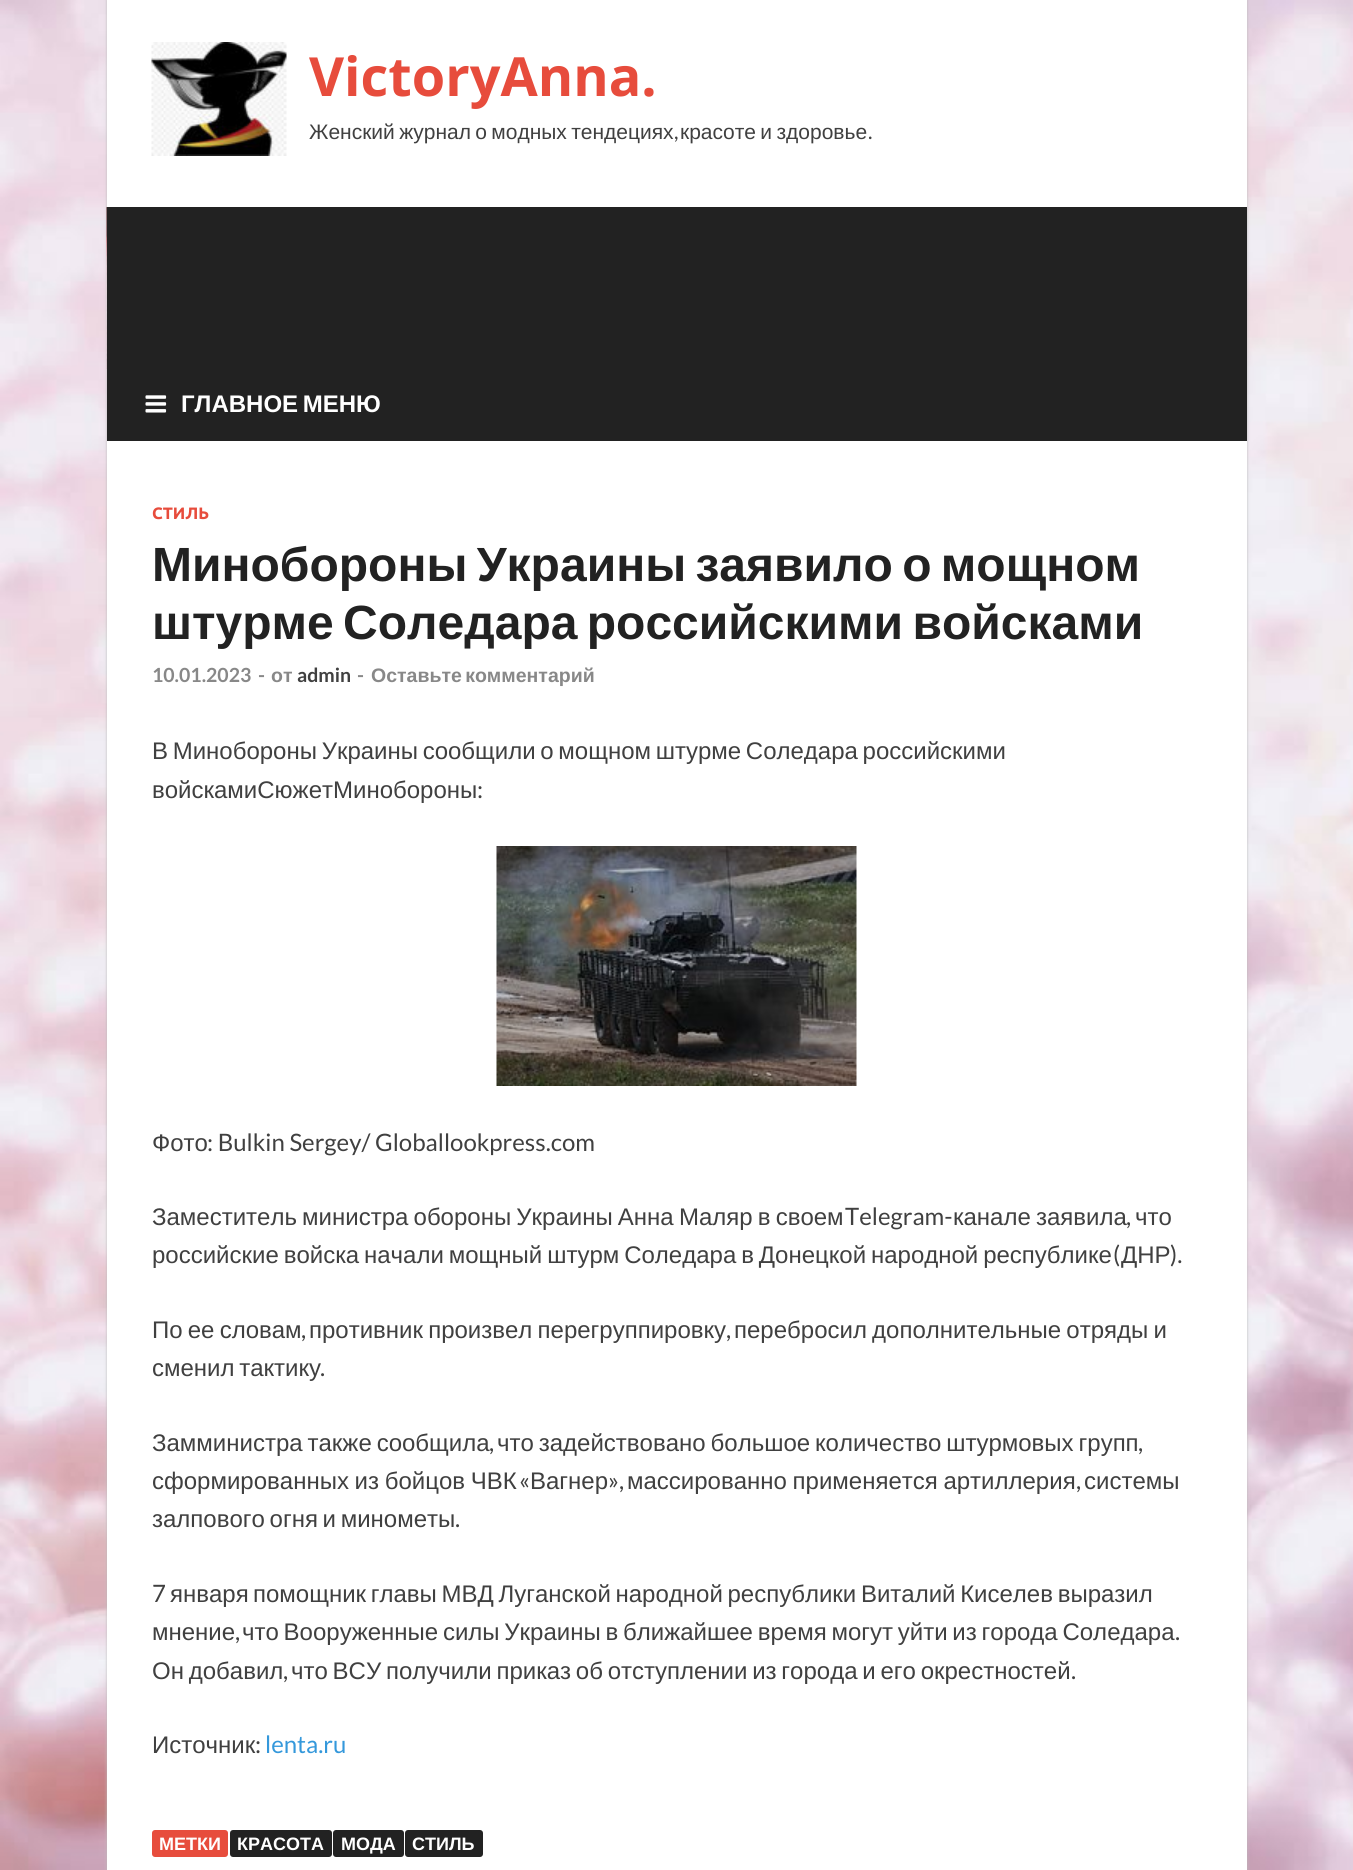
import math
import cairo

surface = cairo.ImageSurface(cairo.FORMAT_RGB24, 1353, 1870)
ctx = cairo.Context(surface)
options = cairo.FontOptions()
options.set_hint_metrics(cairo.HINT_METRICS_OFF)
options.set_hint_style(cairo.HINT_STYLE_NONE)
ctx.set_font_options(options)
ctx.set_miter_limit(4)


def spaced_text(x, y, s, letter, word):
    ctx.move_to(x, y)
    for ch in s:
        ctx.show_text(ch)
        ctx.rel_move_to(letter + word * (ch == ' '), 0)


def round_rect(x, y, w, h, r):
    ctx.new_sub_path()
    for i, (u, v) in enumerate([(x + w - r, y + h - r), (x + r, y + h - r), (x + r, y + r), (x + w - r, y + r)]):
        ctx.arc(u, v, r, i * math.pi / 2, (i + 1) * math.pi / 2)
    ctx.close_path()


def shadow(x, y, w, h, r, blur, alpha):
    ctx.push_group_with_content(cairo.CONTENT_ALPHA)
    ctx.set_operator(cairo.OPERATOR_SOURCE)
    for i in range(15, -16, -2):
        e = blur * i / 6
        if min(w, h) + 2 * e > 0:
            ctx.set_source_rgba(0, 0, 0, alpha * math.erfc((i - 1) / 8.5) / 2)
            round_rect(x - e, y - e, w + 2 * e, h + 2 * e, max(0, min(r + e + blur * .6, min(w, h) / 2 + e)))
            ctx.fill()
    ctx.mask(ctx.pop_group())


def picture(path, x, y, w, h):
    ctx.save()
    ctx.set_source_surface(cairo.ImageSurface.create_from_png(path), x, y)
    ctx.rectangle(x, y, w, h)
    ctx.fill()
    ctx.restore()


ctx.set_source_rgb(1, 1, 1)
ctx.paint()
picture("img1.png", 0, 0, 1353, 1870)
ctx.set_source_rgb(0.733, 0.733, 0.733)
shadow(107, 0, 1140, 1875, 0, 1.5, 1)
ctx.set_source_rgb(1, 1, 1)
ctx.rectangle(107, 0, 1140, 1870)
ctx.fill()
picture("img2.png", 151, 42, 136, 114)
ctx.select_font_face("Open Sans", cairo.FONT_SLANT_NORMAL, cairo.FONT_WEIGHT_BOLD)
ctx.set_font_size(54)
ctx.set_source_rgb(0.906, 0.298, 0.235)
ctx.move_to(309, 96)
ctx.show_text("VictoryAnna.")
ctx.select_font_face("Liberation Sans")
ctx.set_font_size(21)
ctx.set_source_rgb(0.251, 0.251, 0.251)
spaced_text(309, 139, "Женский журнал о модных тендециях", 0, -1.5)
ctx.select_font_face("Lato")
ctx.move_to(674, 139)
ctx.show_text(",")
ctx.select_font_face("Liberation Sans")
spaced_text(680, 139, "красоте и здоровье", 0, -1.5)
ctx.select_font_face("Lato")
ctx.move_to(868, 139)
ctx.show_text(".")
picture("img3.png", 106, 207, 1, 162)
ctx.set_source_rgb(0.133, 0.133, 0.133)
ctx.rectangle(107, 207, 1140, 234)
ctx.fill()
picture("img4.png", 145, 395, 22, 18)
ctx.select_font_face("Liberation Sans", cairo.FONT_SLANT_NORMAL, cairo.FONT_WEIGHT_BOLD)
ctx.set_font_size(24)
ctx.set_source_rgb(1, 1, 1)
spaced_text(181, 412, "ГЛАВНОЕ МЕНЮ", 0, -2)
ctx.select_font_face("Ubuntu", cairo.FONT_SLANT_NORMAL, cairo.FONT_WEIGHT_BOLD)
ctx.set_font_size(16.5)
ctx.set_source_rgb(0.906, 0.298, 0.235)
ctx.move_to(152, 519)
ctx.show_text("СТИЛЬ")
ctx.select_font_face("Liberation Sans", cairo.FONT_SLANT_NORMAL, cairo.FONT_WEIGHT_BOLD)
ctx.set_font_size(48)
ctx.set_source_rgb(0.133, 0.133, 0.133)
spaced_text(152, 581, "Минобороны Украины заявило о мощном", 0, -4)
spaced_text(152, 639, "штурме Соледара российскими войсками", 0, -4)
ctx.select_font_face("Lato", cairo.FONT_SLANT_NORMAL, cairo.FONT_WEIGHT_BOLD)
ctx.set_font_size(19.5)
ctx.set_source_rgb(0.533, 0.533, 0.533)
ctx.move_to(152, 682)
ctx.show_text("10.01.2023")
ctx.move_to(258, 682)
ctx.show_text("-")
ctx.select_font_face("Liberation Sans", cairo.FONT_SLANT_NORMAL, cairo.FONT_WEIGHT_BOLD)
ctx.move_to(271, 682)
ctx.show_text("от")
ctx.select_font_face("Lato", cairo.FONT_SLANT_NORMAL, cairo.FONT_WEIGHT_BOLD)
ctx.set_source_rgb(0.251, 0.251, 0.251)
ctx.move_to(297, 682)
ctx.show_text("admin")
ctx.set_source_rgb(0.533, 0.533, 0.533)
ctx.move_to(357, 682)
ctx.show_text("-")
ctx.select_font_face("Liberation Sans", cairo.FONT_SLANT_NORMAL, cairo.FONT_WEIGHT_BOLD)
spaced_text(371, 682, "Оставьте комментарий", 0, -2)
ctx.select_font_face("Liberation Sans")
ctx.set_font_size(24)
ctx.set_source_rgb(0.251, 0.251, 0.251)
spaced_text(152, 759, "В Минобороны Украины сообщили о мощном штурме Соледара российскими", 0, -2)
ctx.move_to(152, 798)
ctx.show_text("войскамиСюжетМинобороны")
ctx.select_font_face("Lato")
ctx.move_to(477, 798)
ctx.show_text(":")
picture("img5.png", 496, 846, 361, 240)
ctx.select_font_face("Liberation Sans")
ctx.move_to(152, 1151)
ctx.show_text("Фото")
ctx.select_font_face("Lato")
ctx.move_to(207, 1151)
ctx.show_text(": Bulkin Sergey/ Globallookpress.com")
ctx.select_font_face("Liberation Sans")
spaced_text(152, 1225, "Заместитель министра обороны Украины Анна Маляр в своем", 0, -1.5)
ctx.select_font_face("Lato")
ctx.move_to(845, 1225)
ctx.show_text("Telegram-")
ctx.select_font_face("Liberation Sans")
spaced_text(953, 1225, "канале заявила", 0, -1.5)
ctx.select_font_face("Lato")
ctx.move_to(1126, 1225)
ctx.show_text(",")
ctx.select_font_face("Liberation Sans")
ctx.move_to(1135, 1225)
ctx.show_text("что")
spaced_text(152, 1263, "российские войска начали мощный штурм Соледара в Донецкой народной республике", 0, -1.75)
ctx.select_font_face("Lato")
ctx.move_to(1113, 1263)
ctx.show_text("(")
ctx.select_font_face("Liberation Sans")
ctx.move_to(1121, 1263)
ctx.show_text("ДНР")
ctx.select_font_face("Lato")
ctx.move_to(1170, 1263)
ctx.show_text(").")
ctx.select_font_face("Liberation Sans")
spaced_text(152, 1338, "По ее словам", 0, -1.5)
ctx.select_font_face("Lato")
ctx.move_to(301, 1338)
ctx.show_text(",")
ctx.select_font_face("Liberation Sans")
spaced_text(309, 1338, "противник произвел перегруппировку", 0, -1.5)
ctx.select_font_face("Lato")
ctx.move_to(726, 1338)
ctx.show_text(",")
ctx.select_font_face("Liberation Sans")
spaced_text(734, 1338, "перебросил дополнительные отряды и", 0, -1.5)
spaced_text(152, 1376, "сменил тактику", 0, -2)
ctx.select_font_face("Lato")
ctx.move_to(320, 1376)
ctx.show_text(".")
ctx.select_font_face("Liberation Sans")
spaced_text(152, 1451, "Замминистра также сообщила", 0, -1.75)
ctx.select_font_face("Lato")
ctx.move_to(489, 1451)
ctx.show_text(",")
ctx.select_font_face("Liberation Sans")
spaced_text(497, 1451, "что задействовано большое количество штурмовых групп", 0, -1.75)
ctx.select_font_face("Lato")
ctx.move_to(1138, 1451)
ctx.show_text(",")
ctx.select_font_face("Liberation Sans")
spaced_text(152, 1489, "сформированных из бойцов ЧВК", 0, -1)
ctx.select_font_face("Lato")
ctx.move_to(519, 1489)
ctx.show_text("«")
ctx.select_font_face("Liberation Sans")
ctx.move_to(530, 1489)
ctx.show_text("Вагнер")
ctx.select_font_face("Lato")
ctx.move_to(608, 1489)
ctx.show_text("»,")
ctx.select_font_face("Liberation Sans")
spaced_text(627, 1489, "массированно применяется артиллерия", 0, -1)
ctx.select_font_face("Lato")
ctx.move_to(1076, 1489)
ctx.show_text(",")
ctx.select_font_face("Liberation Sans")
ctx.move_to(1084, 1489)
ctx.show_text("системы")
spaced_text(152, 1527, "залпового огня и минометы", 0, -2)
ctx.select_font_face("Lato")
ctx.move_to(455, 1527)
ctx.show_text(".")
ctx.move_to(152, 1602)
ctx.show_text("7")
ctx.select_font_face("Liberation Sans")
ctx.move_to(170, 1602)
ctx.show_text("января")
spaced_text(253, 1602, "помощник главы МВД Луганской народной республики Виталий Киселев выразил", 0, -2)
ctx.move_to(152, 1640)
ctx.show_text("мнение")
ctx.select_font_face("Lato")
ctx.move_to(235, 1640)
ctx.show_text(",")
ctx.select_font_face("Liberation Sans")
spaced_text(242, 1640, "что Вооруженные силы Украины в ближайшее время могут уйти из города Соледара", 0, -1.9)
ctx.select_font_face("Lato")
ctx.move_to(1175, 1640)
ctx.show_text(".")
ctx.select_font_face("Liberation Sans")
spaced_text(152, 1679, "Он добавил", 0, -1.9)
ctx.select_font_face("Lato")
ctx.move_to(283, 1679)
ctx.show_text(",")
ctx.select_font_face("Liberation Sans")
spaced_text(291, 1679, "что ВСУ получили приказ об отступлении из города и его окрестностей", 0, -1.9)
ctx.select_font_face("Lato")
ctx.move_to(1071, 1679)
ctx.show_text(".")
ctx.select_font_face("Liberation Sans")
ctx.move_to(152, 1753)
ctx.show_text("Источник")
ctx.select_font_face("Lato")
ctx.move_to(255, 1753)
ctx.show_text(":")
ctx.set_source_rgb(0.204, 0.596, 0.859)
ctx.move_to(265, 1753)
ctx.show_text("lenta.ru")
ctx.set_source_rgb(0.906, 0.298, 0.235)
round_rect(152, 1830, 76, 27, 3)
ctx.fill()
ctx.select_font_face("Liberation Sans", cairo.FONT_SLANT_NORMAL, cairo.FONT_WEIGHT_BOLD)
ctx.set_font_size(18)
ctx.set_source_rgb(1, 1, 1)
ctx.move_to(159, 1850)
ctx.show_text("МЕТКИ")
ctx.set_source_rgb(0.133, 0.133, 0.133)
round_rect(230, 1830, 102, 27, 3)
ctx.fill()
ctx.set_source_rgb(1, 1, 1)
ctx.move_to(237, 1850)
ctx.show_text("КРАСОТА")
ctx.set_source_rgb(0.133, 0.133, 0.133)
round_rect(333, 1830, 71, 27, 3)
ctx.fill()
ctx.set_source_rgb(1, 1, 1)
ctx.move_to(341, 1850)
ctx.show_text("МОДА")
ctx.set_source_rgb(0.133, 0.133, 0.133)
round_rect(405, 1830, 78, 27, 3)
ctx.fill()
ctx.set_source_rgb(1, 1, 1)
ctx.move_to(412, 1850)
ctx.show_text("СТИЛЬ")
surface.write_to_png("page.png")
